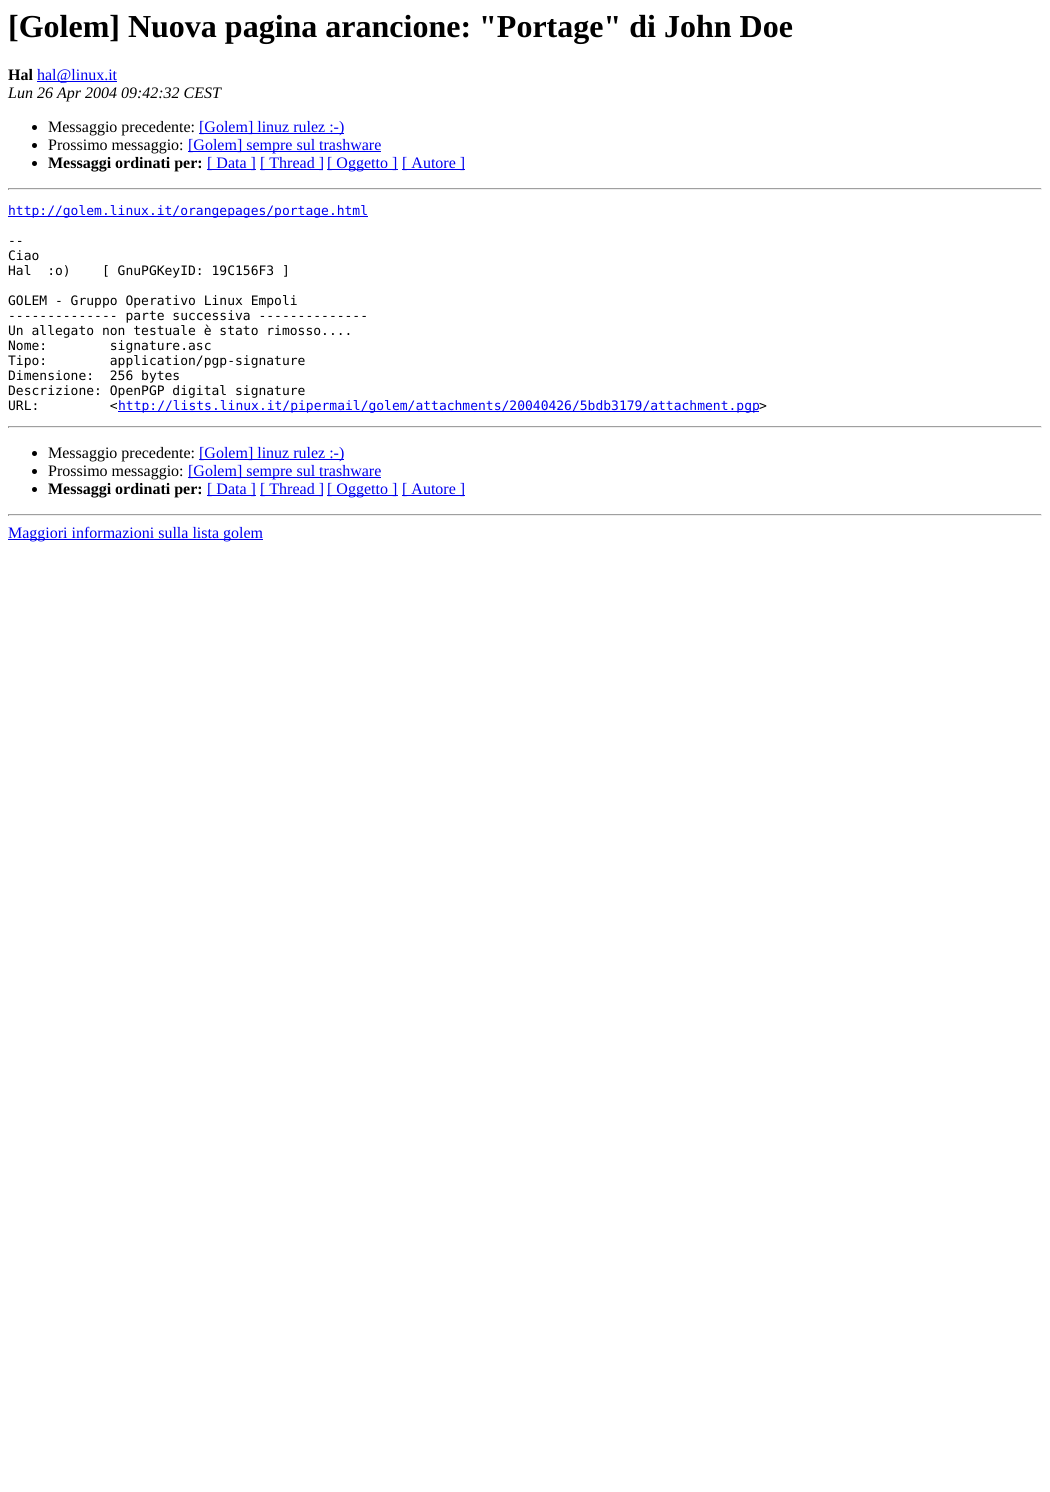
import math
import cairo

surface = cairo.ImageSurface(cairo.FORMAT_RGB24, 1050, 1492)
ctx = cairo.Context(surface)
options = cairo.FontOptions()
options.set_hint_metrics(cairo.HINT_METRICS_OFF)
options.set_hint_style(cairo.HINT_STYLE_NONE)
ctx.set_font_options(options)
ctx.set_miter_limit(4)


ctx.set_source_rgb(1, 1, 1)
ctx.paint()
ctx.select_font_face("Liberation Serif", cairo.FONT_SLANT_NORMAL, cairo.FONT_WEIGHT_BOLD)
ctx.set_font_size(32)
ctx.set_source_rgb(0, 0, 0)
ctx.move_to(8, 37)
ctx.show_text("[Golem] Nuova pagina arancione: \"Portage\" di John Doe")
ctx.set_font_size(16)
ctx.move_to(8, 80)
ctx.show_text("Hal")
ctx.set_source_rgb(0, 0, 0.933)
ctx.rectangle(37, 81, 80, 1)
ctx.fill()
ctx.select_font_face("Liberation Serif")
ctx.move_to(37, 80)
ctx.show_text("hal@linux.it")
ctx.select_font_face("Liberation Serif", cairo.FONT_SLANT_ITALIC)
ctx.set_source_rgb(0, 0, 0)
ctx.move_to(8, 98)
ctx.show_text("Lun 26 Apr 2004 09:42:32 CEST")
ctx.new_path()
ctx.arc(34.5, 127.5, 2.5, 0, 2 * math.pi)
ctx.fill()
ctx.select_font_face("Liberation Serif")
ctx.move_to(48, 132)
ctx.show_text("Messaggio precedente:")
ctx.set_source_rgb(0, 0, 0.933)
ctx.rectangle(199, 133, 145, 1)
ctx.fill()
ctx.move_to(199, 132)
ctx.show_text("[Golem] linuz rulez :-)")
ctx.set_source_rgb(0, 0, 0)
ctx.new_path()
ctx.arc(34.5, 145.5, 2.5, 0, 2 * math.pi)
ctx.fill()
ctx.move_to(48, 150)
ctx.show_text("Prossimo messaggio:")
ctx.set_source_rgb(0, 0, 0.933)
ctx.rectangle(188, 151, 193, 1)
ctx.fill()
ctx.move_to(188, 150)
ctx.show_text("[Golem] sempre sul trashware")
ctx.set_source_rgb(0, 0, 0)
ctx.new_path()
ctx.arc(34.5, 163.5, 2.5, 0, 2 * math.pi)
ctx.fill()
ctx.select_font_face("Liberation Serif", cairo.FONT_SLANT_NORMAL, cairo.FONT_WEIGHT_BOLD)
ctx.move_to(48, 168)
ctx.show_text("Messaggi ordinati per:")
ctx.set_source_rgb(0, 0, 0.933)
ctx.rectangle(207, 169, 49, 1)
ctx.fill()
ctx.select_font_face("Liberation Serif")
ctx.move_to(207, 168)
ctx.show_text("[ Data ]")
ctx.rectangle(260, 169, 63, 1)
ctx.fill()
ctx.move_to(260, 168)
ctx.show_text("[ Thread ]")
ctx.rectangle(327, 169, 71, 1)
ctx.fill()
ctx.move_to(327, 168)
ctx.show_text("[ Oggetto ]")
ctx.rectangle(402, 169, 63, 1)
ctx.fill()
ctx.move_to(402, 168)
ctx.show_text("[ Autore ]")
ctx.set_source_rgb(0.624, 0.624, 0.624)
ctx.rectangle(8, 188, 1034, 1)
ctx.fill()
ctx.set_source_rgb(0.933, 0.933, 0.933)
ctx.rectangle(1041, 188, 1, 2)
ctx.fill()
ctx.rectangle(8, 189, 1034, 1)
ctx.fill()
ctx.set_source_rgb(0.624, 0.624, 0.624)
ctx.rectangle(8, 188, 1, 2)
ctx.fill()
ctx.set_source_rgb(0, 0, 0.933)
ctx.rectangle(8, 216, 360, 1)
ctx.fill()
ctx.select_font_face("DejaVu Sans Mono")
ctx.set_font_size(13)
ctx.move_to(8, 215)
ctx.show_text("http://golem.linux.it/orangepages/portage.html")
ctx.set_source_rgb(0, 0, 0)
ctx.move_to(8, 245)
ctx.show_text("--")
ctx.move_to(8, 260)
ctx.show_text("Ciao")
ctx.move_to(8, 275)
ctx.show_text("Hal  :o)    [ GnuPGKeyID: 19C156F3 ]")
ctx.move_to(8, 305)
ctx.show_text("GOLEM - Gruppo Operativo Linux Empoli")
ctx.move_to(8, 320)
ctx.show_text("-------------- parte successiva --------------")
ctx.move_to(8, 335)
ctx.show_text("Un allegato non testuale è stato rimosso....")
ctx.move_to(8, 350)
ctx.show_text("Nome:        signature.asc")
ctx.move_to(8, 365)
ctx.show_text("Tipo:        application/pgp-signature")
ctx.move_to(8, 380)
ctx.show_text("Dimensione:  256 bytes")
ctx.move_to(8, 395)
ctx.show_text("Descrizione: OpenPGP digital signature")
ctx.move_to(8, 410)
ctx.show_text("URL:         <")
ctx.set_source_rgb(0, 0, 0.933)
ctx.rectangle(118, 411, 641, 1)
ctx.fill()
ctx.move_to(118, 410)
ctx.show_text("http://lists.linux.it/pipermail/golem/attachments/20040426/5bdb3179/attachment.pgp")
ctx.set_source_rgb(0, 0, 0)
ctx.move_to(759, 410)
ctx.show_text(">")
ctx.set_source_rgb(0.624, 0.624, 0.624)
ctx.rectangle(8, 426, 1034, 1)
ctx.fill()
ctx.set_source_rgb(0.933, 0.933, 0.933)
ctx.rectangle(1041, 426, 1, 2)
ctx.fill()
ctx.rectangle(8, 427, 1034, 1)
ctx.fill()
ctx.set_source_rgb(0.624, 0.624, 0.624)
ctx.rectangle(8, 426, 1, 2)
ctx.fill()
ctx.set_source_rgb(0, 0, 0)
ctx.arc(34.5, 453.5, 2.5, 0, 2 * math.pi)
ctx.fill()
ctx.select_font_face("Liberation Serif")
ctx.set_font_size(16)
ctx.move_to(48, 458)
ctx.show_text("Messaggio precedente:")
ctx.set_source_rgb(0, 0, 0.933)
ctx.rectangle(199, 459, 145, 1)
ctx.fill()
ctx.move_to(199, 458)
ctx.show_text("[Golem] linuz rulez :-)")
ctx.set_source_rgb(0, 0, 0)
ctx.new_path()
ctx.arc(34.5, 471.5, 2.5, 0, 2 * math.pi)
ctx.fill()
ctx.move_to(48, 476)
ctx.show_text("Prossimo messaggio:")
ctx.set_source_rgb(0, 0, 0.933)
ctx.rectangle(188, 477, 193, 1)
ctx.fill()
ctx.move_to(188, 476)
ctx.show_text("[Golem] sempre sul trashware")
ctx.set_source_rgb(0, 0, 0)
ctx.new_path()
ctx.arc(34.5, 489.5, 2.5, 0, 2 * math.pi)
ctx.fill()
ctx.select_font_face("Liberation Serif", cairo.FONT_SLANT_NORMAL, cairo.FONT_WEIGHT_BOLD)
ctx.move_to(48, 494)
ctx.show_text("Messaggi ordinati per:")
ctx.set_source_rgb(0, 0, 0.933)
ctx.rectangle(207, 495, 49, 1)
ctx.fill()
ctx.select_font_face("Liberation Serif")
ctx.move_to(207, 494)
ctx.show_text("[ Data ]")
ctx.rectangle(260, 495, 63, 1)
ctx.fill()
ctx.move_to(260, 494)
ctx.show_text("[ Thread ]")
ctx.rectangle(327, 495, 71, 1)
ctx.fill()
ctx.move_to(327, 494)
ctx.show_text("[ Oggetto ]")
ctx.rectangle(402, 495, 63, 1)
ctx.fill()
ctx.move_to(402, 494)
ctx.show_text("[ Autore ]")
ctx.set_source_rgb(0.624, 0.624, 0.624)
ctx.rectangle(8, 514, 1034, 1)
ctx.fill()
ctx.set_source_rgb(0.933, 0.933, 0.933)
ctx.rectangle(1041, 514, 1, 2)
ctx.fill()
ctx.rectangle(8, 515, 1034, 1)
ctx.fill()
ctx.set_source_rgb(0.624, 0.624, 0.624)
ctx.rectangle(8, 514, 1, 2)
ctx.fill()
ctx.set_source_rgb(0, 0, 0.933)
ctx.rectangle(8, 539, 255, 1)
ctx.fill()
ctx.move_to(8, 538)
ctx.show_text("Maggiori informazioni sulla lista golem")
surface.write_to_png("page.png")
